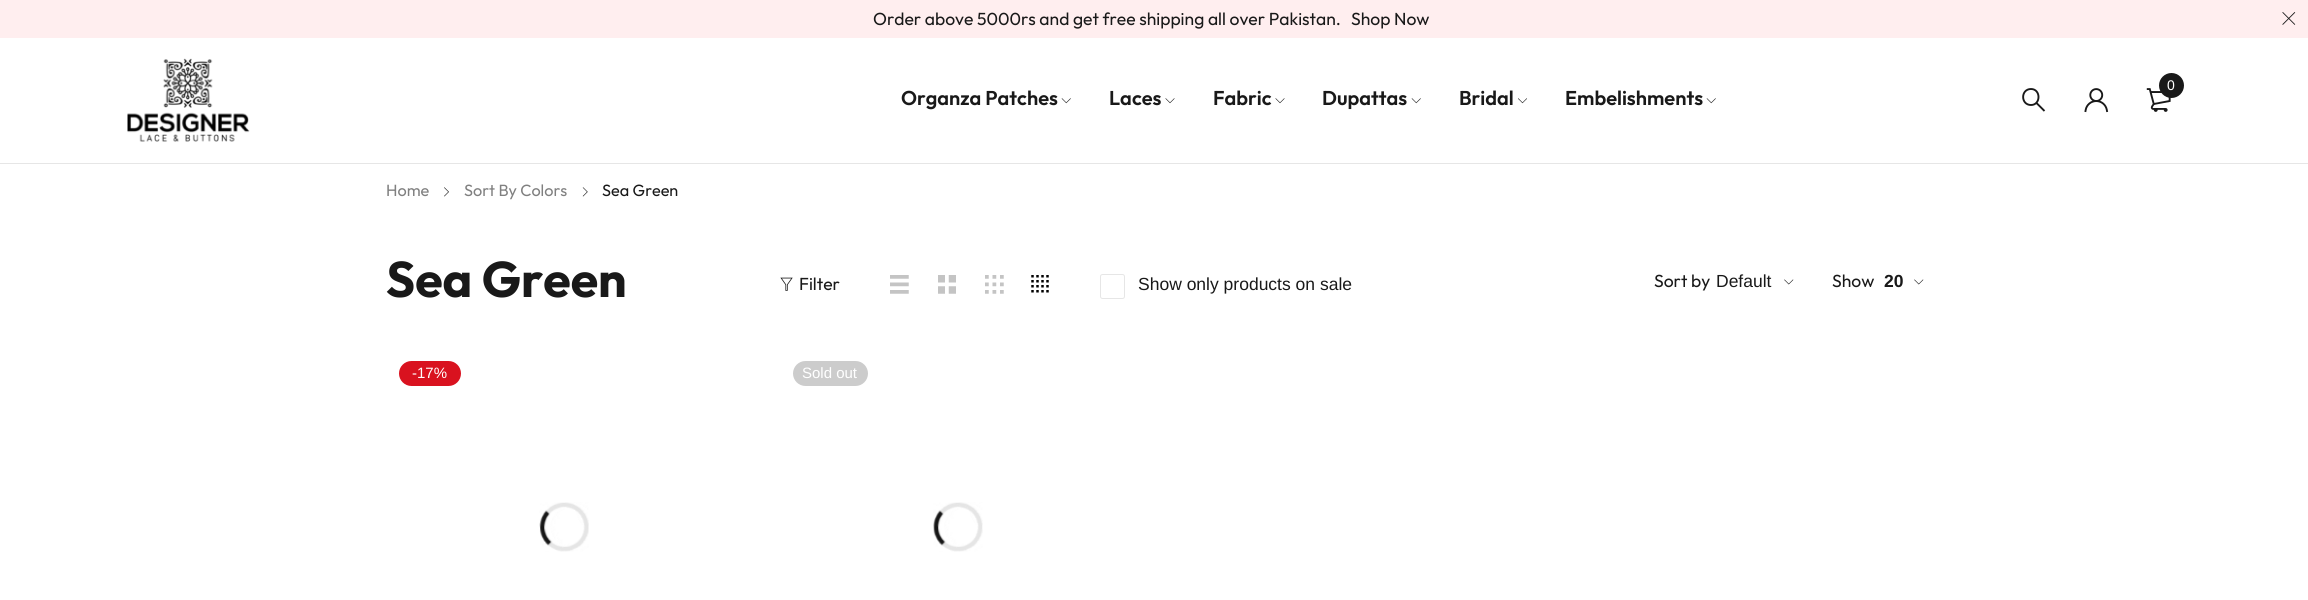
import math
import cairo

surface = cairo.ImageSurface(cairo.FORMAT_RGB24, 2308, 600)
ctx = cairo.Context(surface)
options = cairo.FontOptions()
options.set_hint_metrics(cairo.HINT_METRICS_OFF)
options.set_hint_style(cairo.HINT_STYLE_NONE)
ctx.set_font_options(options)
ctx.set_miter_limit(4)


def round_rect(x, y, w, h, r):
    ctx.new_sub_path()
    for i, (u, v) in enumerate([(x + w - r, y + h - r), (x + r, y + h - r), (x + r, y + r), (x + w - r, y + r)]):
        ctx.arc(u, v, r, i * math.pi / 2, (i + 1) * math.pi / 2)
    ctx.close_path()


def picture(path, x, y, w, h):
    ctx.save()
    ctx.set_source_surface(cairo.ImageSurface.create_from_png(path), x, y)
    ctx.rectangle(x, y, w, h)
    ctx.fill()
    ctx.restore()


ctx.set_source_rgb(1, 1, 1)
ctx.paint()
ctx.set_source_rgb(1, 0.933, 0.937)
ctx.rectangle(0, 0, 2308, 38)
ctx.fill()
ctx.select_font_face("Outfit")
ctx.set_font_size(17.5)
ctx.set_source_rgb(0.098, 0.098, 0.098)
ctx.move_to(873, 25)
ctx.show_text("Order above 5000rs and get free shipping all over Pakistan.")
ctx.move_to(1351, 25)
ctx.show_text("Shop Now")
picture("img1.png", 2282, 12, 14, 13)
ctx.set_source_rgb(0.902, 0.902, 0.902)
ctx.rectangle(0, 163, 2308, 1)
ctx.fill()
picture("img2.png", 127, 58, 123, 84)
picture("img3.png", 2146, 88, 25, 24)
ctx.set_source_rgb(0.098, 0.098, 0.098)
ctx.arc(2171.5, 85.5, 12.5, 0, 2 * math.pi)
ctx.fill()
ctx.select_font_face("Liberation Sans")
ctx.set_font_size(14)
ctx.set_source_rgb(1, 1, 1)
ctx.move_to(2167, 90)
ctx.show_text("0")
ctx.new_path()
ctx.move_to(2031, 105)
ctx.curve_to(2041, 105, 2041, 89, 2031, 89)
ctx.curve_to(2020.5, 89, 2020.5, 105, 2031, 105)
ctx.close_path()
ctx.move_to(2044.5, 111)
ctx.line_to(2036, 102.5)
ctx.set_source_rgb(0.098, 0.098, 0.098)
ctx.set_line_width(1.9)
ctx.stroke()
picture("img4.png", 2084, 88, 25, 25)
ctx.select_font_face("Outfit SemiBold")
ctx.set_font_size(20)
ctx.move_to(901, 105)
ctx.show_text("Organza Patches")
picture("img5.png", 1061, 98, 10, 6)
ctx.move_to(1109, 105)
ctx.show_text("Laces")
picture("img6.png", 1165, 98, 10, 6)
ctx.move_to(1213, 105)
ctx.show_text("Fabric")
picture("img6.png", 1275, 98, 10, 6)
ctx.move_to(1322, 105)
ctx.show_text("Dupattas")
picture("img5.png", 1411, 98, 10, 6)
ctx.move_to(1459, 105)
ctx.show_text("Bridal")
picture("img7.png", 1518, 98, 9, 6)
ctx.move_to(1565, 105)
ctx.show_text("Embelishments")
picture("img5.png", 1706, 98, 10, 6)
ctx.select_font_face("Outfit")
ctx.set_font_size(16.25)
ctx.set_source_rgb(0.502, 0.502, 0.502)
ctx.move_to(386, 196)
ctx.show_text("Home")
picture("img8.png", 444, 187, 5, 10)
ctx.move_to(464, 196)
ctx.show_text("Sort By Colors")
picture("img9.png", 582, 187, 6, 10)
ctx.set_source_rgb(0.098, 0.098, 0.098)
ctx.move_to(602, 196)
ctx.show_text("Sea Green")
ctx.select_font_face("Outfit", cairo.FONT_SLANT_NORMAL, cairo.FONT_WEIGHT_BOLD)
ctx.set_font_size(50)
ctx.move_to(386, 297)
ctx.show_text("Sea Green")
picture("img10.png", 780, 277, 13, 14)
ctx.select_font_face("Outfit")
ctx.set_font_size(17.5)
ctx.move_to(799, 290)
ctx.show_text("Filter")
picture("img11.png", 890, 275, 19, 19)
picture("img12.png", 938, 275, 18, 19)
picture("img13.png", 985, 275, 19, 19)
picture("img14.png", 1031, 275, 18, 18)
round_rect(1100.5, 274.5, 24, 24, 2)
ctx.set_source_rgb(0.902, 0.902, 0.902)
ctx.set_line_width(1)
ctx.stroke()
ctx.select_font_face("Liberation Sans")
ctx.set_source_rgb(0.098, 0.098, 0.098)
ctx.move_to(1138, 290)
ctx.show_text("Show only products on sale")
ctx.select_font_face("Outfit")
ctx.move_to(1654, 287)
ctx.show_text("Sort by")
ctx.select_font_face("Liberation Sans")
ctx.move_to(1716, 287)
ctx.show_text("Default")
picture("img15.png", 1784, 279, 10, 6)
ctx.select_font_face("Outfit")
ctx.move_to(1832, 287)
ctx.show_text("Show")
ctx.select_font_face("Liberation Sans", cairo.FONT_SLANT_NORMAL, cairo.FONT_WEIGHT_BOLD)
ctx.move_to(1884, 287)
ctx.show_text("20")
picture("img15.png", 1914, 279, 10, 6)
ctx.set_source_rgb(0.851, 0.071, 0.122)
round_rect(399, 361, 62, 25, 12.5)
ctx.fill()
ctx.select_font_face("Liberation Sans")
ctx.set_font_size(15)
ctx.set_source_rgb(1, 1, 1)
ctx.move_to(412, 378)
ctx.show_text("-17%")
picture("img16.png", 539, 502, 50, 50)
ctx.set_source_rgb(0.8, 0.8, 0.8)
round_rect(793, 361, 75, 25, 12.5)
ctx.fill()
ctx.set_source_rgb(1, 1, 1)
ctx.move_to(802, 378)
ctx.show_text("Sold out")
picture("img17.png", 933, 502, 50, 50)
surface.write_to_png("page.png")
